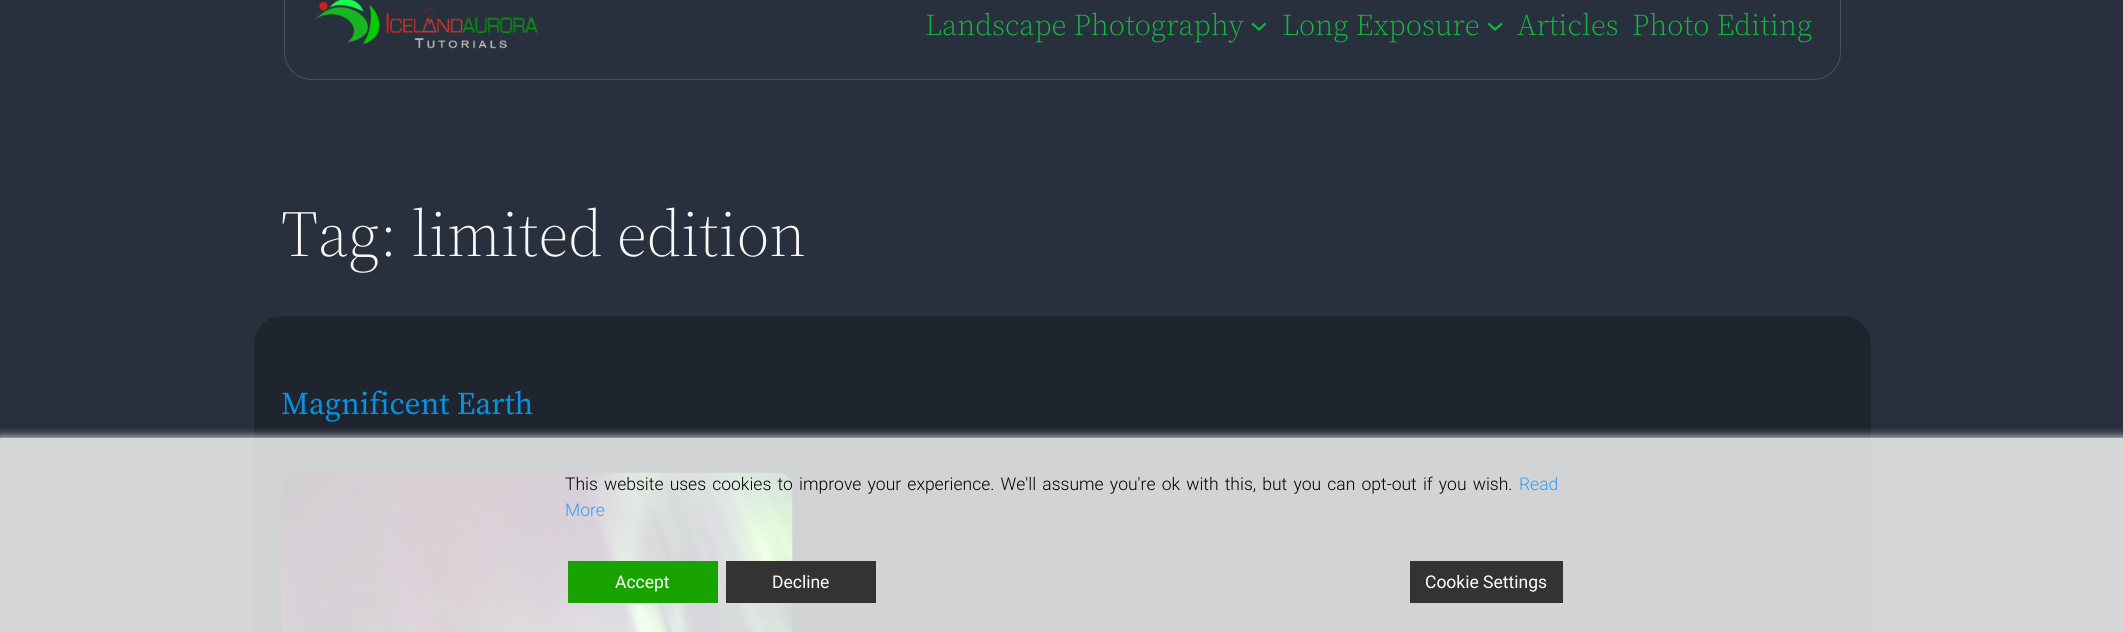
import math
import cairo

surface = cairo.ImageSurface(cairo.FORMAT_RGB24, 2123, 632)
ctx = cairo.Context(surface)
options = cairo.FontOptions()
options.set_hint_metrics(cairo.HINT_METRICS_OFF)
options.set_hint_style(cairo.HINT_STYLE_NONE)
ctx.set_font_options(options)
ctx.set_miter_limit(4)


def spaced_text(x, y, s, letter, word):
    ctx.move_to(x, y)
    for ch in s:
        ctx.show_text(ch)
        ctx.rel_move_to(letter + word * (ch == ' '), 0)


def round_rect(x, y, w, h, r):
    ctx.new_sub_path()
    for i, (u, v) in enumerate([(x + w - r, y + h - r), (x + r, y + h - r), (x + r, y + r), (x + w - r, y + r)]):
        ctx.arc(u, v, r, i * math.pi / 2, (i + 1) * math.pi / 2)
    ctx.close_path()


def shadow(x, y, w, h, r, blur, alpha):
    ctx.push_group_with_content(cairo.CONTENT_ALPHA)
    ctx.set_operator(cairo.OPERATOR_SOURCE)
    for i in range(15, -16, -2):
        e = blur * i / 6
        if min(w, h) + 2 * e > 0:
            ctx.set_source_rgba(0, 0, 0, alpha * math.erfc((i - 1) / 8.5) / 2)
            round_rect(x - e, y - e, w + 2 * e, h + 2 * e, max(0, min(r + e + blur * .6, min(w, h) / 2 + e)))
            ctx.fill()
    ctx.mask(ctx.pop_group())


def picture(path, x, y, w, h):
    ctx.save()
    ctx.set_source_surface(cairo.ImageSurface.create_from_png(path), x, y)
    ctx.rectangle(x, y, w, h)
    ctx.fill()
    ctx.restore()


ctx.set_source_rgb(0.157, 0.188, 0.239)
ctx.paint()
ctx.set_source_rgb(0.831, 0.839, 0.847)
ctx.rectangle(0, 438, 2123, 194)
ctx.fill()
round_rect(284.5, -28.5, 1556, 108, 27.5)
ctx.set_source_rgb(0.282, 0.31, 0.353)
ctx.set_line_width(1)
ctx.stroke()
picture("img1.png", 315, 0, 223, 49)
ctx.select_font_face("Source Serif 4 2 Light")
ctx.set_font_size(30)
ctx.set_source_rgb(0.078, 0.718, 0.239)
ctx.move_to(925, 35)
ctx.show_text("Landscape Photography")
ctx.new_path()
ctx.move_to(1252, 23.5)
ctx.line_to(1259, 29.5)
ctx.line_to(1265.5, 23.5)
ctx.set_line_width(2.2)
ctx.stroke()
ctx.move_to(1282, 35)
ctx.show_text("Long Exposure")
ctx.new_path()
ctx.move_to(1488.5, 23.5)
ctx.line_to(1495, 29.5)
ctx.line_to(1502, 23.5)
ctx.stroke()
ctx.move_to(1517, 35)
ctx.show_text("Articles")
ctx.move_to(1632, 35)
ctx.show_text("Photo Editing")
ctx.select_font_face("Source Serif 4 Light")
ctx.set_font_size(65)
ctx.set_source_rgb(0.965, 0.965, 0.965)
ctx.move_to(281, 256)
ctx.show_text("Tag: limited edition")
ctx.set_source_rgb(0.122, 0.145, 0.184)
round_rect(254, 316, 1617, 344, 28)
ctx.fill()
ctx.set_source_rgb(0.824, 0.827, 0.835)
ctx.rectangle(254, 438, 1617, 194)
ctx.fill()
ctx.select_font_face("Source Serif 4")
ctx.set_font_size(31.5)
ctx.set_source_rgb(0.024, 0.576, 0.89)
ctx.move_to(281, 414)
ctx.show_text("Magnificent Earth")
picture("img2.png", 281, 472, 512, 160)
ctx.save()
ctx.rectangle(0, 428, 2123, 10)
ctx.clip()
ctx.set_source_rgb(1, 1, 1)
shadow(0, 438, 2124, 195, 0, 5, 1)
ctx.restore()
ctx.select_font_face("Roboto Light")
ctx.set_font_size(17.5)
ctx.set_source_rgb(0, 0, 0)
spaced_text(565, 490, "This website uses cookies to improve your experience. We'll assume you're ok with this, but you can opt-out if you wish.", 0, 1.9)
ctx.set_source_rgb(0.208, 0.608, 0.961)
ctx.move_to(1519, 490)
ctx.show_text("Read")
ctx.move_to(565, 516)
ctx.show_text("More")
ctx.set_source_rgb(0.094, 0.639, 0)
ctx.rectangle(568, 561, 150, 42)
ctx.fill()
ctx.select_font_face("Roboto")
ctx.set_source_rgb(1, 1, 1)
ctx.move_to(615, 588)
ctx.show_text("Accept")
ctx.set_source_rgb(0.2, 0.2, 0.2)
ctx.rectangle(726, 561, 150, 42)
ctx.fill()
ctx.set_source_rgb(1, 1, 1)
ctx.move_to(772, 588)
ctx.show_text("Decline")
ctx.set_source_rgb(0.2, 0.2, 0.2)
ctx.rectangle(1410, 561, 153, 42)
ctx.fill()
ctx.set_source_rgb(1, 1, 1)
ctx.move_to(1425, 588)
ctx.show_text("Cookie Settings")
surface.write_to_png("page.png")
